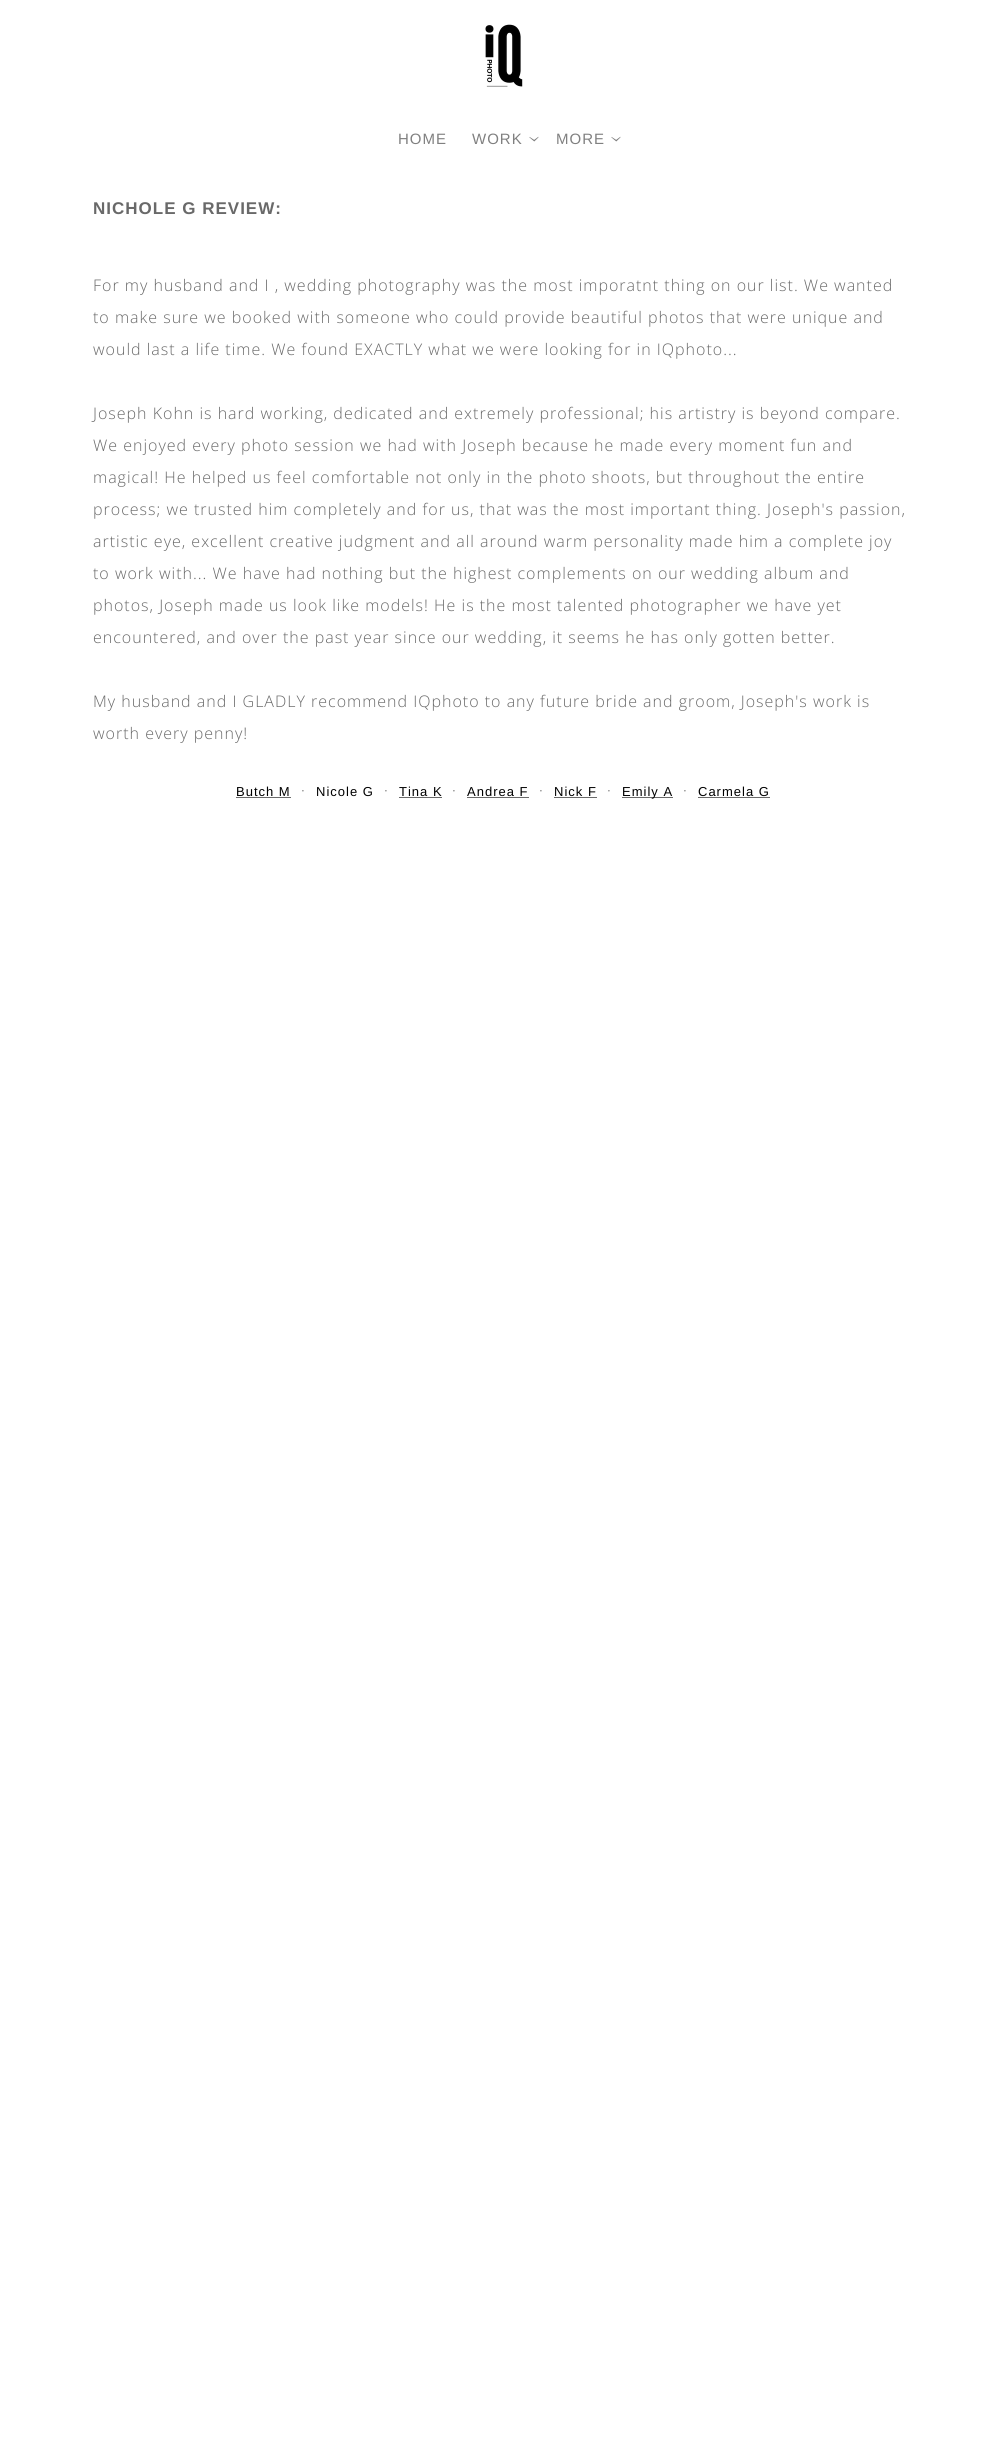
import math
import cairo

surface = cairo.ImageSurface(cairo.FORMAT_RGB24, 1006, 2456)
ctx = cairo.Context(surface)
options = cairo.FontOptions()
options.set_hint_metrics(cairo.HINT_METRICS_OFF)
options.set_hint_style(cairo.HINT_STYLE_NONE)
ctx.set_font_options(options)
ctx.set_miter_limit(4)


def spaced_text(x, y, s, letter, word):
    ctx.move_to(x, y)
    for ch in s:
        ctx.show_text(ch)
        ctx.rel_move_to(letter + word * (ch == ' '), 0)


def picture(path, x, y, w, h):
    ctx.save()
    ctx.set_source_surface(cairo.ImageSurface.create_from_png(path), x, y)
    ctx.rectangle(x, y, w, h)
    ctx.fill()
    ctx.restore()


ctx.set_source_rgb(1, 1, 1)
ctx.paint()
picture("img1.png", 485, 24, 38, 63)
ctx.select_font_face("Liberation Sans")
ctx.set_font_size(15)
ctx.set_source_rgb(0.502, 0.502, 0.502)
spaced_text(398, 144, "HOME", 1, 0)
spaced_text(472, 144, "WORK", 1, 0)
picture("img2.png", 529, 136, 10, 6)
spaced_text(556, 144, "MORE", 1, 0)
picture("img2.png", 611, 136, 10, 6)
ctx.select_font_face("Liberation Sans", cairo.FONT_SLANT_NORMAL, cairo.FONT_WEIGHT_BOLD)
ctx.set_font_size(17)
ctx.set_source_rgb(0.412, 0.412, 0.412)
spaced_text(93, 214, "NICHOLE G REVIEW:", 1, 0)
ctx.select_font_face("Open Sans Light")
ctx.set_font_size(16)
spaced_text(93, 291, "For my husband and I , wedding photography was the most imporatnt thing on our list. We wanted", 1, 0)
spaced_text(93, 323, "to make sure we booked with someone who could provide beautiful photos that were unique and", 1, 0)
spaced_text(93, 355, "would last a life time. We found EXACTLY what we were looking for in IQphoto...", 1, 0)
spaced_text(93, 419, "Joseph Kohn is hard working, dedicated and extremely professional; his artistry is beyond compare.", 1, 0)
spaced_text(93, 451, "We enjoyed every photo session we had with Joseph because he made every moment fun and", 1, 0)
spaced_text(93, 483, "magical! He helped us feel comfortable not only in the photo shoots, but throughout the entire", 1, 0)
spaced_text(93, 515, "process; we trusted him completely and for us, that was the most important thing. Joseph's passion,", 1, 0)
spaced_text(93, 547, "artistic eye, excellent creative judgment and all around warm personality made him a complete joy", 1, 0)
spaced_text(93, 579, "to work with... We have had nothing but the highest complements on our wedding album and", 1, 0)
spaced_text(93, 611, "photos, Joseph made us look like models! He is the most talented photographer we have yet", 1, 0)
spaced_text(93, 643, "encountered, and over the past year since our wedding, it seems he has only gotten better.", 1, 0)
spaced_text(93, 707, "My husband and I GLADLY recommend IQphoto to any future bride and groom, Joseph's work is", 1, 0)
spaced_text(93, 739, "worth every penny!", 1, 0)
ctx.select_font_face("Liberation Sans")
ctx.set_font_size(13)
ctx.set_source_rgb(0, 0, 0)
spaced_text(236, 796, "Butch M", 1, 0)
ctx.set_source_rgb(0.412, 0.412, 0.412)
ctx.rectangle(236, 797, 55, 1)
ctx.fill()
ctx.select_font_face("Open Sans Light")
ctx.set_font_size(16)
spaced_text(301, 796, "·", 1, 0)
ctx.select_font_face("Liberation Sans")
ctx.set_font_size(13)
ctx.set_source_rgb(0, 0, 0)
spaced_text(316, 796, "Nicole G", 1, 0)
ctx.select_font_face("Open Sans Light")
ctx.set_font_size(16)
ctx.set_source_rgb(0.412, 0.412, 0.412)
spaced_text(384, 796, "·", 1, 0)
ctx.select_font_face("Liberation Sans")
ctx.set_font_size(13)
ctx.set_source_rgb(0, 0, 0)
spaced_text(399, 796, "Tina K", 1, 0)
ctx.set_source_rgb(0.412, 0.412, 0.412)
ctx.rectangle(399, 797, 43, 1)
ctx.fill()
ctx.select_font_face("Open Sans Light")
ctx.set_font_size(16)
spaced_text(452, 796, "·", 1, 0)
ctx.select_font_face("Liberation Sans")
ctx.set_font_size(13)
ctx.set_source_rgb(0, 0, 0)
spaced_text(467, 796, "Andrea F", 1, 0)
ctx.set_source_rgb(0.412, 0.412, 0.412)
ctx.rectangle(467, 797, 62, 1)
ctx.fill()
ctx.select_font_face("Open Sans Light")
ctx.set_font_size(16)
spaced_text(539, 796, "·", 1, 0)
ctx.select_font_face("Liberation Sans")
ctx.set_font_size(13)
ctx.set_source_rgb(0, 0, 0)
spaced_text(554, 796, "Nick F", 1, 0)
ctx.set_source_rgb(0.412, 0.412, 0.412)
ctx.rectangle(554, 797, 43, 1)
ctx.fill()
ctx.select_font_face("Open Sans Light")
ctx.set_font_size(16)
spaced_text(607, 796, "·", 1, 0)
ctx.rectangle(622, 797, 51, 1)
ctx.fill()
ctx.select_font_face("Liberation Sans")
ctx.set_font_size(13)
ctx.set_source_rgb(0, 0, 0)
spaced_text(622, 796, "Emily A", 1, 0)
ctx.select_font_face("Open Sans Light")
ctx.set_font_size(16)
ctx.set_source_rgb(0.412, 0.412, 0.412)
spaced_text(683, 796, "·", 1, 0)
ctx.select_font_face("Liberation Sans")
ctx.set_font_size(13)
ctx.set_source_rgb(0, 0, 0)
spaced_text(698, 796, "Carmela G", 1, 0)
ctx.set_source_rgb(0.412, 0.412, 0.412)
ctx.rectangle(698, 797, 72, 1)
ctx.fill()
surface.write_to_png("page.png")
